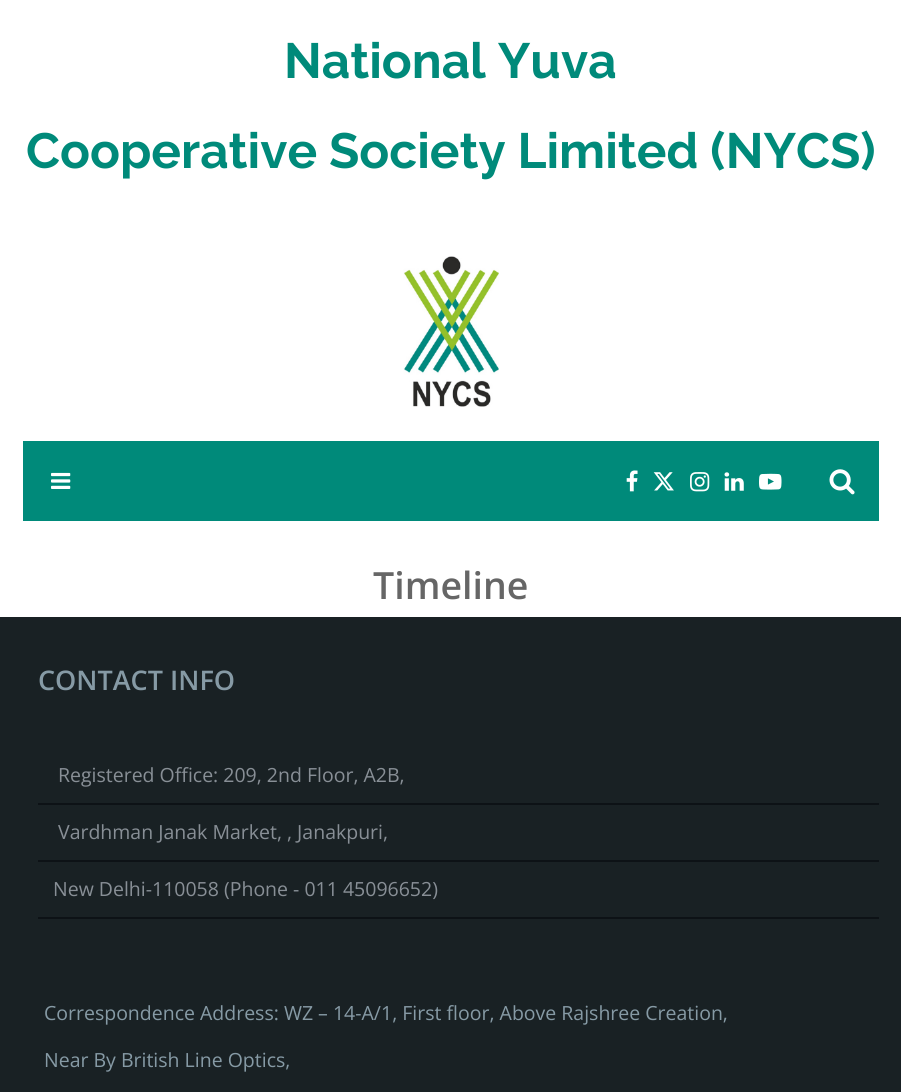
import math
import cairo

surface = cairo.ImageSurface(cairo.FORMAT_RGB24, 901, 1092)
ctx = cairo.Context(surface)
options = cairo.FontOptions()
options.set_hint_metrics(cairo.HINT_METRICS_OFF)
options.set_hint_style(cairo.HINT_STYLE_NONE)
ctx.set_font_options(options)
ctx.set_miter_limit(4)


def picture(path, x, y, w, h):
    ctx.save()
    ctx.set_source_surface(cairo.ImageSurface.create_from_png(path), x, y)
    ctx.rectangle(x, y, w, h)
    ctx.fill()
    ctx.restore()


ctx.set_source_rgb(1, 1, 1)
ctx.paint()
ctx.select_font_face("Raleway", cairo.FONT_SLANT_NORMAL, cairo.FONT_WEIGHT_BOLD)
ctx.set_font_size(49.5)
ctx.set_source_rgb(0, 0.541, 0.478)
ctx.move_to(284, 78)
ctx.show_text("National Yuva")
ctx.move_to(26, 168)
ctx.show_text("Cooperative Society Limited (NYCS)")
picture("img1.png", 403, 256, 96, 151)
ctx.rectangle(23, 441, 856, 80)
ctx.fill()
picture("img2.png", 51, 472, 20, 17)
picture("img3.png", 626, 470, 12, 22)
picture("img4.png", 653, 472, 21, 19)
picture("img5.png", 690, 472, 20, 20)
picture("img6.png", 724, 472, 20, 19)
picture("img7.png", 759, 473, 23, 17)
picture("img8.png", 829, 469, 26, 26)
ctx.select_font_face("Open Sans SemiBold")
ctx.set_font_size(37.5)
ctx.set_source_rgb(0.4, 0.4, 0.4)
ctx.move_to(373, 599)
ctx.show_text("Timeline")
ctx.set_source_rgb(0.098, 0.129, 0.141)
ctx.rectangle(0, 617, 901, 475)
ctx.fill()
ctx.set_font_size(27)
ctx.set_source_rgb(0.525, 0.604, 0.647)
ctx.move_to(38, 690)
ctx.show_text("CONTACT INFO")
ctx.set_source_rgb(0.051, 0.071, 0.086)
ctx.rectangle(38, 803, 841, 2)
ctx.fill()
ctx.select_font_face("Open Sans")
ctx.set_font_size(19.5)
ctx.set_source_rgb(0.533, 0.561, 0.588)
ctx.move_to(58, 782)
ctx.show_text("Registered Office: 209, 2nd Floor, A2B,")
ctx.set_source_rgb(0.051, 0.071, 0.086)
ctx.rectangle(38, 860, 841, 2)
ctx.fill()
ctx.set_source_rgb(0.533, 0.561, 0.588)
ctx.move_to(58, 839)
ctx.show_text("Vardhman Janak Market, , Janakpuri,")
ctx.set_source_rgb(0.051, 0.071, 0.086)
ctx.rectangle(38, 917, 841, 2)
ctx.fill()
ctx.set_source_rgb(0.533, 0.561, 0.588)
ctx.move_to(53, 896)
ctx.show_text("New Delhi-110058 (Phone - 011 45096652)")
ctx.set_source_rgb(0.525, 0.604, 0.647)
ctx.move_to(44, 1020)
ctx.show_text("Correspondence Address: WZ – 14-A/1, First floor, Above Rajshree Creation,")
ctx.move_to(44, 1067)
ctx.show_text("Near By British Line Optics,")
surface.write_to_png("page.png")
